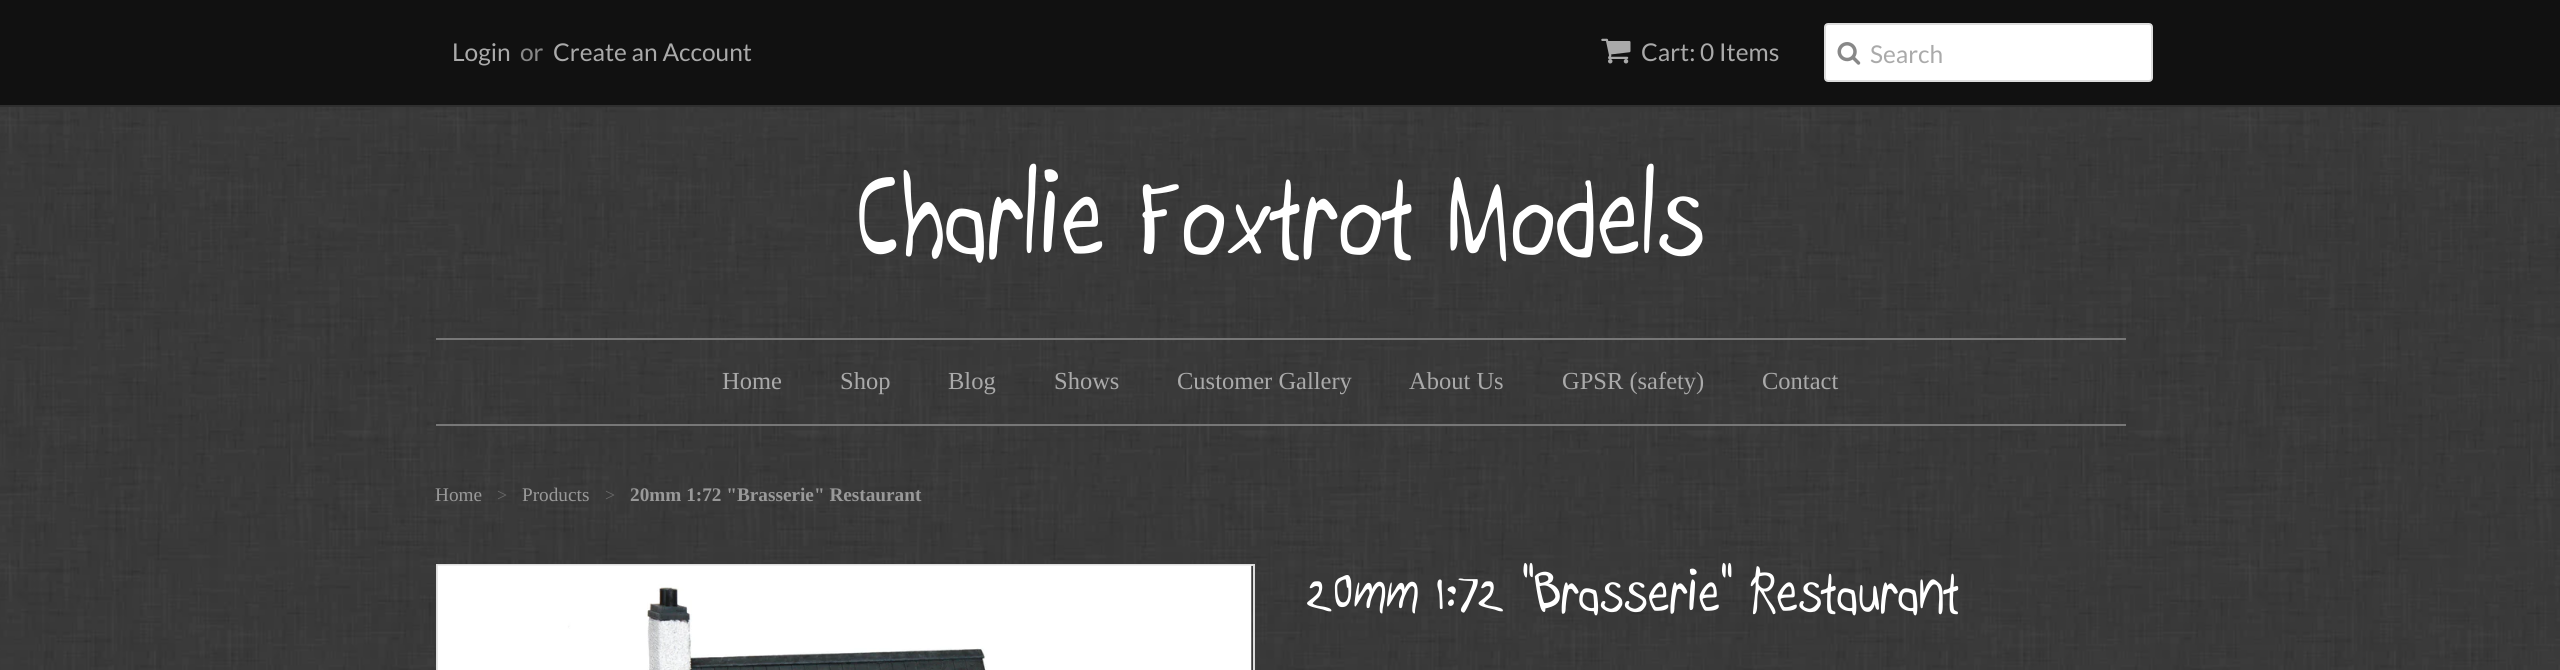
import math
import cairo

surface = cairo.ImageSurface(cairo.FORMAT_RGB24, 2560, 670)
ctx = cairo.Context(surface)
options = cairo.FontOptions()
options.set_hint_metrics(cairo.HINT_METRICS_OFF)
options.set_hint_style(cairo.HINT_STYLE_NONE)
ctx.set_font_options(options)
ctx.set_miter_limit(4)


def round_rect(x, y, w, h, r):
    ctx.new_sub_path()
    for i, (u, v) in enumerate([(x + w - r, y + h - r), (x + r, y + h - r), (x + r, y + r), (x + w - r, y + r)]):
        ctx.arc(u, v, r, i * math.pi / 2, (i + 1) * math.pi / 2)
    ctx.close_path()


def picture(path, x, y, w, h):
    ctx.save()
    ctx.set_source_surface(cairo.ImageSurface.create_from_png(path), x, y)
    ctx.rectangle(x, y, w, h)
    ctx.fill()
    ctx.restore()


ctx.set_source_rgb(1, 1, 1)
ctx.paint()
picture("img1.png", 0, 107, 2560, 563)
ctx.set_source_rgb(0.067, 0.067, 0.067)
ctx.rectangle(0, 0, 2560, 105)
ctx.fill()
ctx.set_source_rgb(0.184, 0.184, 0.184)
ctx.rectangle(0, 105, 2560, 2)
ctx.fill()
ctx.select_font_face("Lato")
ctx.set_font_size(24.5)
ctx.set_source_rgb(0.667, 0.667, 0.667)
ctx.move_to(452, 61)
ctx.show_text("Login")
ctx.set_source_rgb(0.533, 0.533, 0.533)
ctx.move_to(520, 61)
ctx.show_text("or")
ctx.set_source_rgb(0.667, 0.667, 0.667)
ctx.move_to(553, 61)
ctx.show_text("Create an Account")
picture("img2.png", 1601, 38, 30, 26)
ctx.move_to(1641, 61)
ctx.show_text("Cart: 0 Items")
ctx.set_source_rgb(1, 1, 1)
round_rect(1825, 24, 327, 57, 3)
ctx.fill_preserve()
ctx.set_source_rgb(0.867, 0.867, 0.867)
ctx.stroke()
picture("img3.png", 1837, 42, 24, 23)
ctx.set_source_rgb(0.667, 0.667, 0.667)
ctx.move_to(1870, 63)
ctx.show_text("Search")
ctx.select_font_face("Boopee")
ctx.set_font_size(126)
ctx.set_source_rgb(1, 1, 1)
ctx.move_to(856, 254)
ctx.show_text("Charlie Foxtrot Models")
ctx.set_source_rgb(0.467, 0.467, 0.467)
ctx.rectangle(436, 338, 1690, 2)
ctx.fill()
ctx.rectangle(436, 424, 1690, 2)
ctx.fill()
ctx.select_font_face("Liberation Serif")
ctx.set_font_size(24.5)
ctx.set_source_rgb(0.667, 0.667, 0.667)
ctx.move_to(722, 389)
ctx.show_text("Home")
ctx.move_to(840, 389)
ctx.show_text("Shop")
ctx.move_to(948, 389)
ctx.show_text("Blog")
ctx.move_to(1054, 389)
ctx.show_text("Shows")
ctx.move_to(1177, 389)
ctx.show_text("Customer Gallery")
ctx.move_to(1409, 389)
ctx.show_text("About Us")
ctx.move_to(1562, 389)
ctx.show_text("GPSR (safety)")
ctx.move_to(1762, 389)
ctx.show_text("Contact")
ctx.set_font_size(19.25)
ctx.set_source_rgb(0.6, 0.6, 0.6)
ctx.move_to(435, 501)
ctx.show_text("Home")
ctx.set_font_size(18)
ctx.set_source_rgb(0.416, 0.416, 0.416)
ctx.move_to(497, 501)
ctx.show_text(">")
ctx.set_font_size(19.25)
ctx.set_source_rgb(0.6, 0.6, 0.6)
ctx.move_to(522, 501)
ctx.show_text("Products")
ctx.set_font_size(18)
ctx.set_source_rgb(0.416, 0.416, 0.416)
ctx.move_to(605, 501)
ctx.show_text(">")
ctx.select_font_face("Liberation Serif", cairo.FONT_SLANT_NORMAL, cairo.FONT_WEIGHT_BOLD)
ctx.set_font_size(19.25)
ctx.set_source_rgb(0.6, 0.6, 0.6)
ctx.move_to(630, 501)
ctx.show_text("20mm 1:72 \"Brasserie\" Restaurant")
ctx.rectangle(437, 565, 817, 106)
ctx.set_source_rgb(0.867, 0.867, 0.867)
ctx.stroke()
picture("img4.png", 437, 565, 815, 105)
ctx.select_font_face("Boopee")
ctx.set_font_size(63)
ctx.set_source_rgb(1, 1, 1)
ctx.move_to(1306, 611)
ctx.show_text("20mm 1:72 \"Brasserie\" Restaurant")
surface.write_to_png("page.png")
